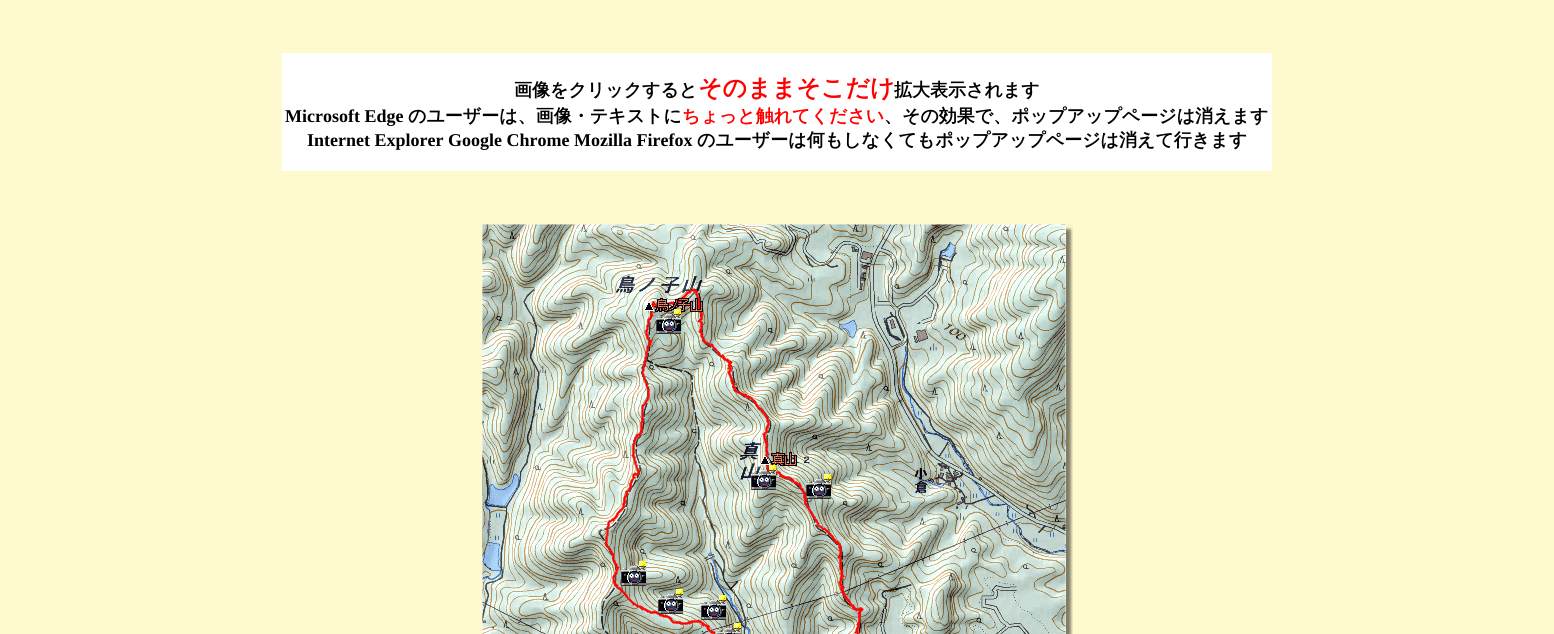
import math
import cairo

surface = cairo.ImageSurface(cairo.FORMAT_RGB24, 1554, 634)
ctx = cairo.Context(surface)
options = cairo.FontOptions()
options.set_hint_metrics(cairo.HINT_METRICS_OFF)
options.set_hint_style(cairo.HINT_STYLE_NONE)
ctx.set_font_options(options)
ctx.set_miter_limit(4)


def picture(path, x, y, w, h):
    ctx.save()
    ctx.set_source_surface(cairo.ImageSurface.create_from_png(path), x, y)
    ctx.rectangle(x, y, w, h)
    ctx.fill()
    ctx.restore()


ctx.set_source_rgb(1, 0.98, 0.804)
ctx.paint()
ctx.set_source_rgb(1, 1, 1)
ctx.rectangle(282, 53, 990, 118)
ctx.fill()
ctx.select_font_face("WenQuanYi Zen Hei", cairo.FONT_SLANT_NORMAL, cairo.FONT_WEIGHT_BOLD)
ctx.set_font_size(18)
ctx.set_source_rgb(0, 0, 0)
ctx.move_to(514, 96)
ctx.show_text("画像をクリックすると")
ctx.set_font_size(24)
ctx.set_source_rgb(1, 0, 0)
ctx.move_to(698, 96)
ctx.show_text("そのままそこだけ")
ctx.set_font_size(18)
ctx.set_source_rgb(0, 0, 0)
ctx.move_to(894, 96)
ctx.show_text("拡大表示されます")
ctx.select_font_face("Liberation Serif", cairo.FONT_SLANT_NORMAL, cairo.FONT_WEIGHT_BOLD)
ctx.move_to(285, 122)
ctx.show_text("Microsoft Edge")
ctx.select_font_face("WenQuanYi Zen Hei", cairo.FONT_SLANT_NORMAL, cairo.FONT_WEIGHT_BOLD)
ctx.move_to(408, 122)
ctx.show_text("のユーザーは、画像・テキストに")
ctx.set_source_rgb(1, 0, 0)
ctx.move_to(682, 122)
ctx.show_text("ちょっと触れてください")
ctx.set_source_rgb(0, 0, 0)
ctx.move_to(884, 122)
ctx.show_text("、その効果で、ポップアップページは消えます")
ctx.select_font_face("Liberation Serif", cairo.FONT_SLANT_NORMAL, cairo.FONT_WEIGHT_BOLD)
ctx.move_to(307, 146)
ctx.show_text("Internet Explorer Google Chrome Mozilla Firefox")
ctx.select_font_face("WenQuanYi Zen Hei", cairo.FONT_SLANT_NORMAL, cairo.FONT_WEIGHT_BOLD)
ctx.move_to(697, 146)
ctx.show_text("のユーザーは何もしなくてもポップアップページは消えて行きます")
picture("img1.png", 482, 224, 591, 410)
surface.write_to_png("page.png")
